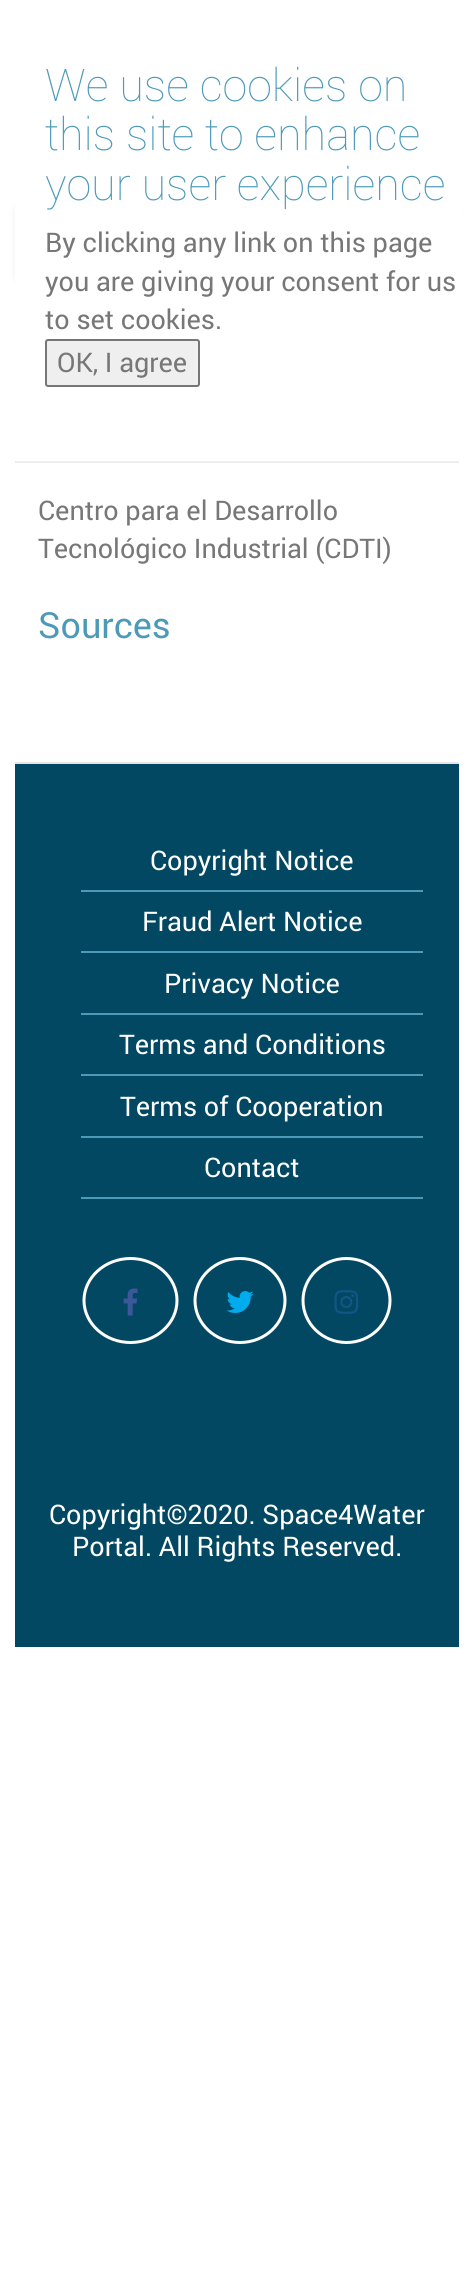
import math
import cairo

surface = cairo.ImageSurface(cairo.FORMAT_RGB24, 474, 2290)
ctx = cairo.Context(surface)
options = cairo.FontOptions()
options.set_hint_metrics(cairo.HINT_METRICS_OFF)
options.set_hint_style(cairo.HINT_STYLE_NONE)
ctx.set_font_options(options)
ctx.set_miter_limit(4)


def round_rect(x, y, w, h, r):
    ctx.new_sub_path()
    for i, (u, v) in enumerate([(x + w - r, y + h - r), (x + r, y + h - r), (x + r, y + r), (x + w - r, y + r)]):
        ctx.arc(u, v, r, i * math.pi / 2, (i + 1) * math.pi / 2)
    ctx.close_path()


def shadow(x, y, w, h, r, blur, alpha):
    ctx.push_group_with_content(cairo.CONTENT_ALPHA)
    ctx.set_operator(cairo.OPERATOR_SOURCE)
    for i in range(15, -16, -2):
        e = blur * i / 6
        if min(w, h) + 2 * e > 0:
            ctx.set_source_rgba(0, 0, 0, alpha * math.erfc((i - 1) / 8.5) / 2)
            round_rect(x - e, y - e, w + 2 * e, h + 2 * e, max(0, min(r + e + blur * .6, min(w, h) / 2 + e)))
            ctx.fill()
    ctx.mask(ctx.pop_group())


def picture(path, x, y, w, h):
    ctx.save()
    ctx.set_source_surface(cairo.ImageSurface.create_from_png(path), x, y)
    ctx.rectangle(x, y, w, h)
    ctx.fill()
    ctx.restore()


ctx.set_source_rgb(1, 1, 1)
ctx.paint()
ctx.set_source_rgb(0, 0, 0)
shadow(15, 206, 444, 75, 6, 4, 0.07)
ctx.set_source_rgb(1, 1, 1)
ctx.rectangle(15, 202, 448, 83)
ctx.fill()
ctx.select_font_face("Roboto Thin")
ctx.set_font_size(45)
ctx.set_source_rgb(0.302, 0.604, 0.722)
ctx.move_to(45, 101)
ctx.show_text("We use cookies on")
ctx.move_to(45, 150)
ctx.show_text("this site to enhance")
ctx.move_to(45, 200)
ctx.show_text("your user experience")
ctx.select_font_face("Roboto")
ctx.set_font_size(27)
ctx.set_source_rgb(0.467, 0.467, 0.467)
ctx.move_to(45, 252)
ctx.show_text("By clicking any link on this page")
ctx.move_to(45, 291)
ctx.show_text("you are giving your consent for us")
ctx.move_to(45, 329)
ctx.show_text("to set cookies.")
ctx.set_source_rgb(0.937, 0.937, 0.937)
round_rect(46, 340, 153, 46, 2)
ctx.fill_preserve()
ctx.set_source_rgb(0.463, 0.463, 0.463)
ctx.stroke()
ctx.set_source_rgb(0.467, 0.467, 0.467)
ctx.move_to(57, 372)
ctx.show_text("OK, I agree")
ctx.set_source_rgb(0.933, 0.933, 0.933)
ctx.rectangle(15, 461, 444, 2)
ctx.fill()
ctx.set_source_rgb(0.467, 0.467, 0.467)
ctx.move_to(38, 520)
ctx.show_text("Centro para el Desarrollo")
ctx.move_to(38, 558)
ctx.show_text("Tecnológico Industrial (CDTI)")
ctx.set_font_size(36)
ctx.set_source_rgb(0.302, 0.604, 0.722)
ctx.move_to(38, 638)
ctx.show_text("Sources")
ctx.set_source_rgb(0.012, 0.282, 0.384)
ctx.rectangle(15, 764, 444, 883)
ctx.fill()
ctx.set_source_rgb(0.898, 0.898, 0.898)
ctx.rectangle(15, 762, 444, 2)
ctx.fill()
ctx.set_source_rgb(0.302, 0.604, 0.722)
ctx.rectangle(81, 890, 342, 2)
ctx.fill()
ctx.set_font_size(27)
ctx.set_source_rgb(1, 1, 1)
ctx.move_to(150, 870)
ctx.show_text("Copyright Notice")
ctx.set_source_rgb(0.302, 0.604, 0.722)
ctx.rectangle(81, 951, 342, 2)
ctx.fill()
ctx.set_source_rgb(1, 1, 1)
ctx.move_to(142, 931)
ctx.show_text("Fraud Alert Notice")
ctx.set_source_rgb(0.302, 0.604, 0.722)
ctx.rectangle(81, 1013, 342, 2)
ctx.fill()
ctx.set_source_rgb(1, 1, 1)
ctx.move_to(164, 993)
ctx.show_text("Privacy Notice")
ctx.set_source_rgb(0.302, 0.604, 0.722)
ctx.rectangle(81, 1074, 342, 2)
ctx.fill()
ctx.set_source_rgb(1, 1, 1)
ctx.move_to(119, 1054)
ctx.show_text("Terms and Conditions")
ctx.set_source_rgb(0.302, 0.604, 0.722)
ctx.rectangle(81, 1136, 342, 2)
ctx.fill()
ctx.set_source_rgb(1, 1, 1)
ctx.move_to(120, 1116)
ctx.show_text("Terms of Cooperation")
ctx.set_source_rgb(0.302, 0.604, 0.722)
ctx.rectangle(81, 1197, 342, 2)
ctx.fill()
ctx.set_source_rgb(1, 1, 1)
ctx.move_to(204, 1177)
ctx.show_text("Contact")
ctx.new_path()
ctx.move_to(130.5, 1258.5)
ctx.curve_to(156, 1258.5, 177, 1277.5, 177, 1300.5)
ctx.curve_to(177, 1323.5, 156, 1342.5, 130.5, 1342.5)
ctx.curve_to(105, 1342.5, 84, 1323.5, 84, 1300.5)
ctx.curve_to(84, 1277.5, 105, 1258.5, 130.5, 1258.5)
ctx.close_path()
ctx.set_line_width(3)
ctx.stroke()
picture("img1.png", 123, 1288, 15, 28)
ctx.new_path()
ctx.move_to(240, 1258.5)
ctx.curve_to(265, 1258.5, 285, 1277.5, 285, 1300.5)
ctx.curve_to(285, 1323.5, 265, 1342.5, 240, 1342.5)
ctx.curve_to(215, 1342.5, 195, 1323.5, 195, 1300.5)
ctx.curve_to(195, 1277.5, 215, 1258.5, 240, 1258.5)
ctx.close_path()
ctx.stroke()
picture("img2.png", 226, 1291, 28, 22)
ctx.new_path()
ctx.move_to(346.5, 1258.5)
ctx.curve_to(370.5, 1258.5, 390, 1277.5, 390, 1300.5)
ctx.curve_to(390, 1323.5, 370.5, 1342.5, 346.5, 1342.5)
ctx.curve_to(322.5, 1342.5, 303, 1323.5, 303, 1300.5)
ctx.curve_to(303, 1277.5, 322.5, 1258.5, 346.5, 1258.5)
ctx.close_path()
ctx.stroke()
picture("img3.png", 334, 1290, 25, 24)
ctx.move_to(49, 1524)
ctx.show_text("Copyright©2020. Space4Water")
ctx.move_to(72, 1556)
ctx.show_text("Portal. All Rights Reserved.")
surface.write_to_png("page.png")
